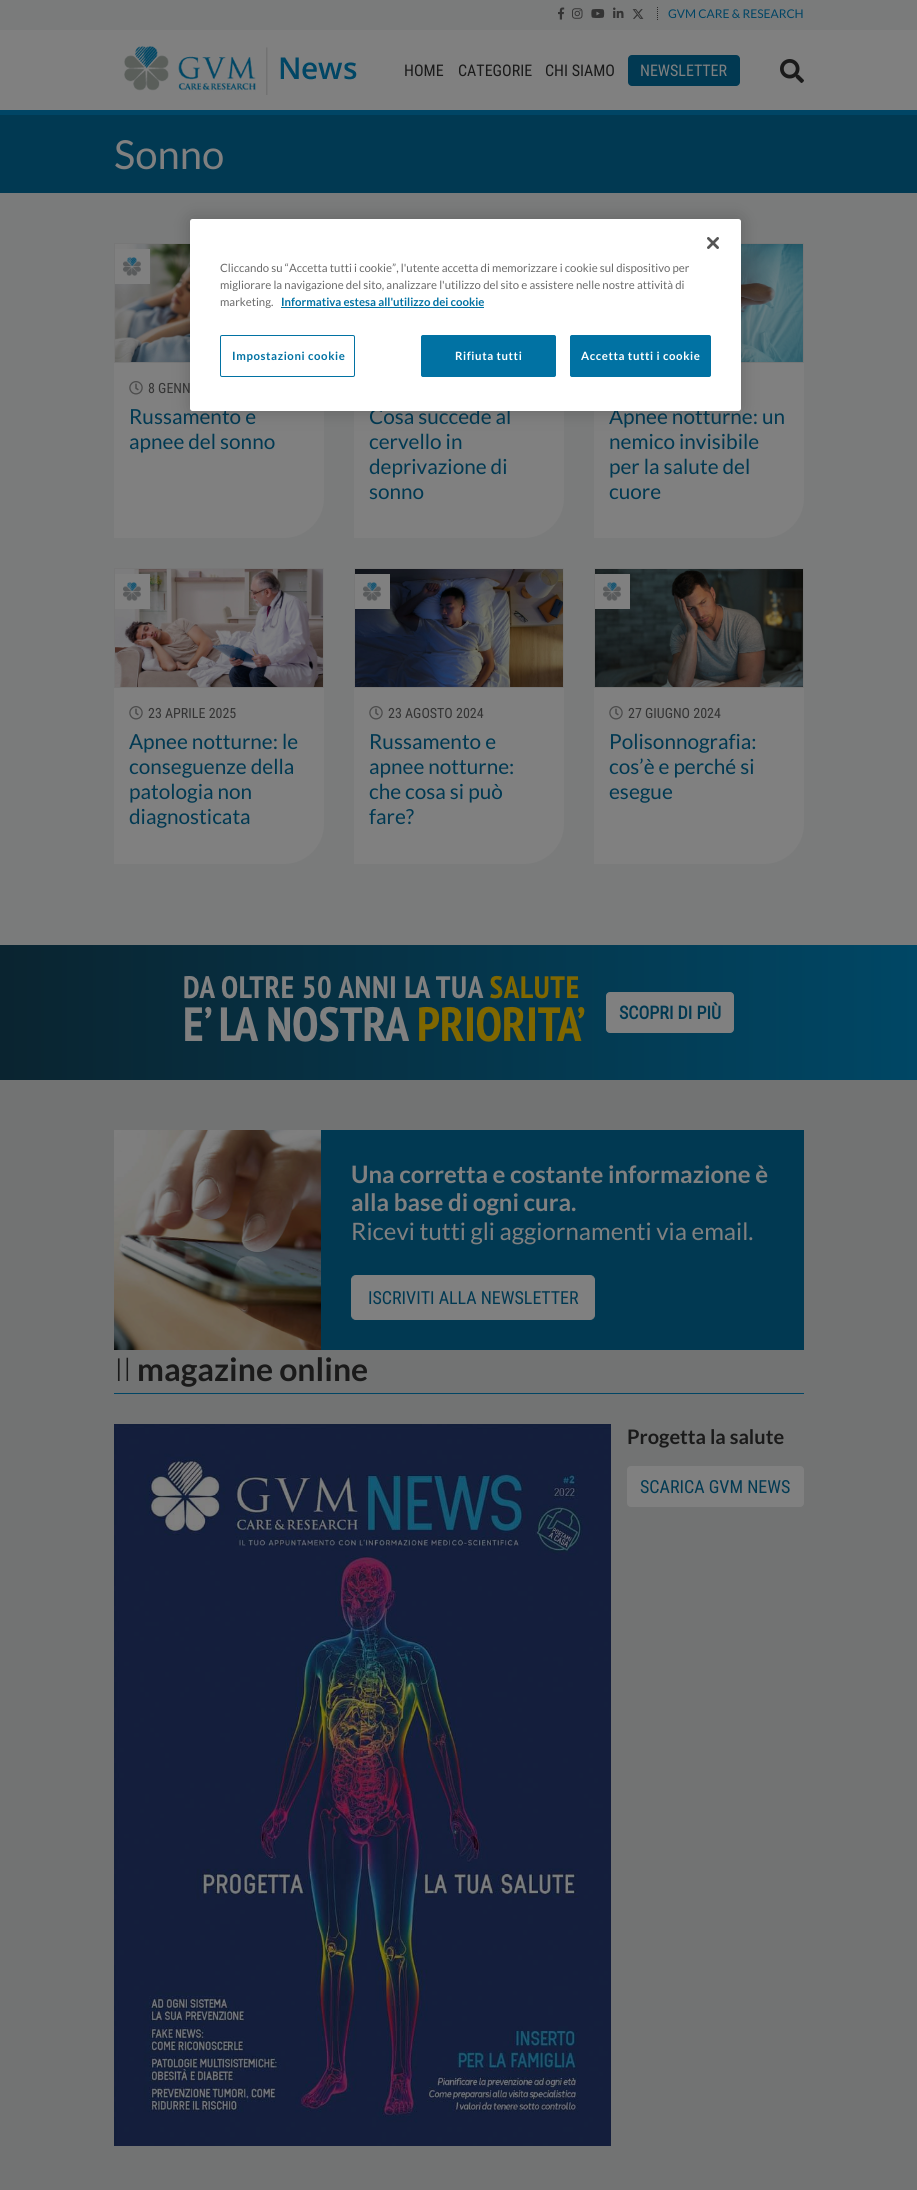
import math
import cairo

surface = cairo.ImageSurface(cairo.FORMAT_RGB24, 917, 2190)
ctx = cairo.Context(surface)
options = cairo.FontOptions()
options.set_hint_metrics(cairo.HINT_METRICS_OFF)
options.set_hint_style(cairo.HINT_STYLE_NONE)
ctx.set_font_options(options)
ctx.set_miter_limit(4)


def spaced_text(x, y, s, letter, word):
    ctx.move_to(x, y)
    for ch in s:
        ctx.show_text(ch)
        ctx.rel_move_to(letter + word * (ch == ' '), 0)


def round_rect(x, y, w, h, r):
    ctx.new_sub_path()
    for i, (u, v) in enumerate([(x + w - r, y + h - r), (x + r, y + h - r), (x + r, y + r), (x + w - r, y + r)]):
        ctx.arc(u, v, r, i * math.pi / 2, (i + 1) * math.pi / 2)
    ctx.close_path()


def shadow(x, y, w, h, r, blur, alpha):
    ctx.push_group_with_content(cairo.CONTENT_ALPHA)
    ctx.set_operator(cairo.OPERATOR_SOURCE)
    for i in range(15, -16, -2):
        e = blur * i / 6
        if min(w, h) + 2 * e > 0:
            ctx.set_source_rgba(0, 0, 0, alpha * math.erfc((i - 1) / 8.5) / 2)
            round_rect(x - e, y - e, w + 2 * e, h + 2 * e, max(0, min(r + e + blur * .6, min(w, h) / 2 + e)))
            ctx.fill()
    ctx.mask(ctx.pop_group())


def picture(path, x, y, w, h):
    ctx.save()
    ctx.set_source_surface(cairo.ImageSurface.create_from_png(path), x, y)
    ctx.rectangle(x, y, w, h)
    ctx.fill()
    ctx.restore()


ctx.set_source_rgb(0.502, 0.502, 0.502)
ctx.paint()
ctx.set_source_rgb(0.478, 0.482, 0.482)
ctx.rectangle(0, 0, 917, 30)
ctx.fill()
ctx.set_source_rgb(0, 0.271, 0.396)
ctx.rectangle(0, 110, 917, 5)
ctx.fill()
picture("img1.png", 124, 46, 233, 49)
picture("img2.png", 558, 7, 7, 13)
picture("img3.png", 572, 8, 11, 11)
picture("img4.png", 591, 9, 14, 9)
picture("img5.png", 613, 7, 11, 11)
picture("img6.png", 632, 9, 12, 10)
ctx.new_path()
ctx.move_to(657.5, 7)
ctx.line_to(657.5, 21)
ctx.set_source_rgb(0.169, 0.169, 0.169)
ctx.set_line_width(1)
ctx.set_dash([1, 1])
ctx.stroke()
ctx.select_font_face("Lato")
ctx.set_font_size(12)
ctx.set_source_rgb(0, 0.271, 0.396)
ctx.move_to(668, 18)
ctx.show_text("GVM CARE & RESEARCH")
ctx.select_font_face("Roboto Condensed")
ctx.set_font_size(16)
ctx.set_source_rgb(0.102, 0.102, 0.102)
ctx.move_to(404, 76)
ctx.show_text("HOME")
ctx.move_to(458, 76)
ctx.show_text("CATEGORIE")
ctx.move_to(545, 76)
ctx.show_text("CHI SIAMO")
ctx.set_source_rgb(0.004, 0.224, 0.322)
round_rect(628, 55, 112, 31, 4)
ctx.fill()
ctx.set_source_rgb(0.502, 0.502, 0.502)
ctx.move_to(640, 76)
ctx.show_text("NEWSLETTER")
picture("img7.png", 780, 59, 24, 24)
ctx.set_source_rgb(0.478, 0.482, 0.482)
ctx.rectangle(0, 193, 917, 752)
ctx.fill()
ctx.set_source_rgb(0.004, 0.224, 0.322)
ctx.rectangle(0, 115, 917, 78)
ctx.fill()
ctx.select_font_face("Lato")
ctx.set_font_size(40)
ctx.set_source_rgb(0.502, 0.502, 0.502)
ctx.move_to(114, 169)
ctx.show_text("Sonno")
ctx.new_path()
ctx.move_to(114, 243)
ctx.line_to(324, 243)
ctx.line_to(324, 498)
ctx.curve_to(324, 520, 306, 538, 284, 538)
ctx.line_to(114, 538)
ctx.close_path()
ctx.fill()
ctx.rectangle(114.5, 243.5, 209, 119)
ctx.set_source_rgb(0.467, 0.467, 0.467)
ctx.set_dash([])
ctx.stroke()
picture("img8.png", 115, 244, 75, 118)
ctx.set_source_rgb(0.502, 0.502, 0.502)
ctx.rectangle(115, 249, 35, 35)
ctx.fill()
picture("img9.png", 123, 257, 18, 19)
picture("img10.png", 129, 381, 14, 14)
ctx.select_font_face("Roboto Condensed")
ctx.set_font_size(14)
ctx.set_source_rgb(0.2, 0.2, 0.2)
ctx.move_to(148, 393)
ctx.show_text("8 GENN")
ctx.select_font_face("Lato")
ctx.set_font_size(20.75)
ctx.set_source_rgb(0.004, 0.224, 0.322)
ctx.move_to(129, 424)
ctx.show_text("Russamento e")
ctx.move_to(129, 449)
ctx.show_text("apnee del sonno")
ctx.set_source_rgb(0.502, 0.502, 0.502)
ctx.new_path()
ctx.move_to(354, 243)
ctx.line_to(564, 243)
ctx.line_to(564, 498)
ctx.curve_to(564, 520, 546, 538, 524, 538)
ctx.line_to(354, 538)
ctx.close_path()
ctx.fill()
ctx.set_source_rgb(0.004, 0.224, 0.322)
ctx.move_to(369, 424)
ctx.show_text("Cosa succede al")
ctx.move_to(369, 449)
ctx.show_text("cervello in")
ctx.move_to(369, 474)
ctx.show_text("deprivazione di")
ctx.move_to(369, 499)
ctx.show_text("sonno")
ctx.set_source_rgb(0.502, 0.502, 0.502)
ctx.new_path()
ctx.move_to(594, 243)
ctx.line_to(804, 243)
ctx.line_to(804, 498)
ctx.curve_to(804, 520, 786, 538, 764, 538)
ctx.line_to(594, 538)
ctx.close_path()
ctx.fill()
ctx.rectangle(594.5, 243.5, 209, 119)
ctx.set_source_rgb(0.467, 0.467, 0.467)
ctx.stroke()
picture("img11.png", 741, 244, 62, 118)
ctx.set_source_rgb(0.004, 0.224, 0.322)
ctx.move_to(609, 424)
ctx.show_text("Apnee notturne: un")
ctx.move_to(609, 449)
ctx.show_text("nemico invisibile")
ctx.move_to(609, 474)
ctx.show_text("per la salute del")
ctx.move_to(609, 499)
ctx.show_text("cuore")
ctx.set_source_rgb(0.502, 0.502, 0.502)
ctx.new_path()
ctx.move_to(114, 568)
ctx.line_to(324, 568)
ctx.line_to(324, 824)
ctx.curve_to(324, 846, 306, 864, 284, 864)
ctx.line_to(114, 864)
ctx.close_path()
ctx.fill()
ctx.rectangle(114.5, 568.5, 209, 119)
ctx.set_source_rgb(0.467, 0.467, 0.467)
ctx.stroke()
picture("img12.png", 115, 569, 208, 118)
ctx.set_source_rgb(0.502, 0.502, 0.502)
ctx.rectangle(115, 574, 35, 35)
ctx.fill()
picture("img9.png", 123, 582, 18, 19)
picture("img10.png", 129, 706, 14, 14)
ctx.select_font_face("Roboto Condensed")
ctx.set_font_size(14)
ctx.set_source_rgb(0.2, 0.2, 0.2)
ctx.move_to(148, 718)
ctx.show_text("23 APRILE 2025")
ctx.select_font_face("Lato")
ctx.set_font_size(20.75)
ctx.set_source_rgb(0.004, 0.224, 0.322)
ctx.move_to(129, 749)
ctx.show_text("Apnee notturne: le")
ctx.move_to(129, 774)
ctx.show_text("conseguenze della")
ctx.move_to(129, 799)
ctx.show_text("patologia non")
ctx.move_to(129, 824)
ctx.show_text("diagnosticata")
ctx.set_source_rgb(0.502, 0.502, 0.502)
ctx.new_path()
ctx.move_to(354, 568)
ctx.line_to(564, 568)
ctx.line_to(564, 824)
ctx.curve_to(564, 846, 546, 864, 524, 864)
ctx.line_to(354, 864)
ctx.close_path()
ctx.fill()
ctx.rectangle(354.5, 568.5, 209, 119)
ctx.set_source_rgb(0.467, 0.467, 0.467)
ctx.stroke()
picture("img13.png", 355, 569, 208, 118)
ctx.set_source_rgb(0.502, 0.502, 0.502)
ctx.rectangle(355, 574, 35, 35)
ctx.fill()
picture("img14.png", 363, 582, 18, 19)
picture("img10.png", 369, 706, 14, 14)
ctx.select_font_face("Roboto Condensed")
ctx.set_font_size(14)
ctx.set_source_rgb(0.2, 0.2, 0.2)
ctx.move_to(388, 718)
ctx.show_text("23 AGOSTO 2024")
ctx.select_font_face("Lato")
ctx.set_font_size(20.75)
ctx.set_source_rgb(0.004, 0.224, 0.322)
ctx.move_to(369, 749)
ctx.show_text("Russamento e")
ctx.move_to(369, 774)
ctx.show_text("apnee notturne:")
ctx.move_to(369, 799)
ctx.show_text("che cosa si può")
ctx.move_to(369, 824)
ctx.show_text("fare?")
ctx.set_source_rgb(0.502, 0.502, 0.502)
ctx.new_path()
ctx.move_to(594, 568)
ctx.line_to(804, 568)
ctx.line_to(804, 824)
ctx.curve_to(804, 846, 786, 864, 764, 864)
ctx.line_to(594, 864)
ctx.close_path()
ctx.fill()
ctx.rectangle(594.5, 568.5, 209, 119)
ctx.set_source_rgb(0.467, 0.467, 0.467)
ctx.stroke()
picture("img15.png", 595, 569, 208, 118)
ctx.set_source_rgb(0.502, 0.502, 0.502)
ctx.rectangle(595, 574, 35, 35)
ctx.fill()
picture("img14.png", 603, 582, 18, 19)
picture("img10.png", 609, 706, 14, 14)
ctx.select_font_face("Roboto Condensed")
ctx.set_font_size(14)
ctx.set_source_rgb(0.2, 0.2, 0.2)
ctx.move_to(628, 718)
ctx.show_text("27 GIUGNO 2024")
ctx.select_font_face("Lato")
ctx.set_font_size(20.75)
ctx.set_source_rgb(0.004, 0.224, 0.322)
ctx.move_to(609, 749)
ctx.show_text("Polisonnografia:")
ctx.move_to(609, 774)
ctx.show_text("cos’è e perché si")
ctx.move_to(609, 799)
ctx.show_text("esegue")
gradient = cairo.LinearGradient(0, 1013, 917, 1013)
gradient.add_color_stop_rgba(0, 0.039, 0.141, 0.188, 1)
gradient.add_color_stop_rgba(1, 0, 0.278, 0.396, 1)
ctx.set_source(gradient)
ctx.rectangle(0, 945, 917, 135)
ctx.fill()
picture("img16.png", 184, 975, 401, 67)
ctx.set_source_rgb(0.502, 0.502, 0.502)
round_rect(606.5, 992.5, 127, 40, 3.5)
ctx.fill_preserve()
ctx.stroke()
ctx.select_font_face("Roboto Condensed", cairo.FONT_SLANT_NORMAL, cairo.FONT_WEIGHT_BOLD)
ctx.set_font_size(18)
ctx.set_source_rgb(0.004, 0.224, 0.322)
ctx.move_to(619, 1019)
ctx.show_text("SCOPRI DI PIÙ")
ctx.set_source_rgb(0.447, 0.451, 0.451)
ctx.rectangle(0, 1080, 917, 1110)
ctx.fill()
picture("img17.png", 114, 1130, 207, 220)
ctx.set_source_rgb(0.004, 0.224, 0.322)
ctx.rectangle(321, 1130, 483, 220)
ctx.fill()
ctx.select_font_face("Lato", cairo.FONT_SLANT_NORMAL, cairo.FONT_WEIGHT_BOLD)
ctx.set_font_size(24)
ctx.set_source_rgb(0.502, 0.502, 0.502)
ctx.move_to(351, 1183)
ctx.show_text("Una corretta e costante informazione è")
ctx.move_to(351, 1211)
ctx.show_text("alla base di ogni cura.")
ctx.select_font_face("Lato")
ctx.move_to(351, 1240)
ctx.show_text("Ricevi tutti gli aggiornamenti via email.")
round_rect(351.5, 1275.5, 243, 44, 4.5)
ctx.fill_preserve()
ctx.stroke()
ctx.select_font_face("Roboto Condensed")
ctx.set_font_size(18)
ctx.set_source_rgb(0.004, 0.224, 0.322)
ctx.move_to(368, 1304)
ctx.show_text("ISCRIVITI ALLA NEWSLETTER")
ctx.set_source_rgb(0, 0.271, 0.396)
ctx.rectangle(114, 1393, 690, 1)
ctx.fill()
ctx.select_font_face("Lato Light")
ctx.set_font_size(32)
ctx.set_source_rgb(0.102, 0.102, 0.102)
ctx.move_to(114, 1381)
ctx.show_text("Il")
ctx.select_font_face("Lato", cairo.FONT_SLANT_NORMAL, cairo.FONT_WEIGHT_BOLD)
ctx.move_to(137, 1381)
ctx.show_text("magazine online")
picture("img18.png", 114, 1424, 497, 722)
ctx.set_font_size(20)
ctx.move_to(627, 1444)
ctx.show_text("Progetta la salute")
ctx.set_source_rgb(0.502, 0.502, 0.502)
round_rect(627.5, 1466.5, 176, 40, 3.5)
ctx.fill_preserve()
ctx.stroke()
ctx.select_font_face("Roboto Condensed")
ctx.set_font_size(18)
ctx.set_source_rgb(0.004, 0.224, 0.322)
ctx.move_to(640, 1493)
ctx.show_text("SCARICA GVM NEWS")
ctx.set_source_rgb(0, 0, 0)
shadow(190, 219, 551, 192, 2.5, 9, 0.2)
ctx.set_source_rgb(1, 1, 1)
round_rect(190, 219, 551, 192, 2.5)
ctx.fill()
picture("img19.png", 707, 237, 12, 12)
ctx.select_font_face("Lato")
ctx.set_font_size(11.4)
ctx.set_source_rgb(0.412, 0.412, 0.412)
ctx.move_to(220, 272)
ctx.show_text("Cliccando su “Accetta tutti i cookie”, l'utente accetta di memorizzare i cookie sul dispositivo per")
ctx.move_to(220, 289)
ctx.show_text("migliorare la navigazione del sito, analizzare l'utilizzo del sito e assistere nelle nostre attività di")
ctx.move_to(220, 306)
ctx.show_text("marketing.")
ctx.select_font_face("Lato", cairo.FONT_SLANT_NORMAL, cairo.FONT_WEIGHT_BOLD)
ctx.set_source_rgb(0.004, 0.447, 0.639)
ctx.move_to(281, 306)
ctx.show_text("Informativa estesa all'utilizzo dei cookie")
ctx.rectangle(281, 307, 203, 1)
ctx.fill()
round_rect(220.5, 335.5, 134, 41, 1.5)
ctx.stroke()
spaced_text(232, 360, "Impostazioni cookie", 0.6, 0)
round_rect(421.5, 335.5, 134, 41, 1.5)
ctx.fill_preserve()
ctx.stroke()
ctx.set_source_rgb(1, 1, 1)
spaced_text(455, 360, "Rifiuta tutti", 0.6, 0)
ctx.set_source_rgb(0.004, 0.447, 0.639)
round_rect(570.5, 335.5, 140, 41, 1.5)
ctx.fill_preserve()
ctx.stroke()
ctx.set_source_rgb(1, 1, 1)
spaced_text(581, 360, "Accetta tutti i cookie", 0.6, 0)
surface.write_to_png("page.png")
